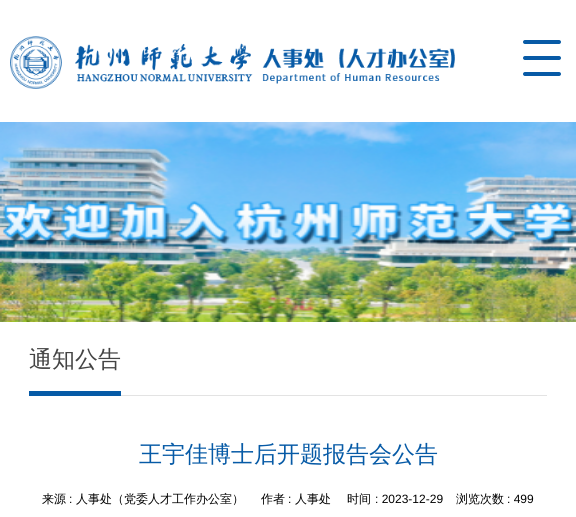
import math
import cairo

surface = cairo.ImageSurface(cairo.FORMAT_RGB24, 576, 517)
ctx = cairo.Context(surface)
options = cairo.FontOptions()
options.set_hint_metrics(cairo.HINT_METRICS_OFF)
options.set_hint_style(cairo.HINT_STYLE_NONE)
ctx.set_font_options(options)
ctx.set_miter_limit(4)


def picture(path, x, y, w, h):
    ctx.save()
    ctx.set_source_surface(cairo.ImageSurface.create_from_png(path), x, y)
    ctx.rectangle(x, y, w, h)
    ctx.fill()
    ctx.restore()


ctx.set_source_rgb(1, 1, 1)
ctx.paint()
picture("img1.png", 10, 36, 445, 53)
picture("img2.png", 523, 40, 38, 36)
picture("img3.png", 0, 122, 576, 200)
ctx.set_source_rgb(0.89, 0.89, 0.89)
ctx.rectangle(121, 395, 426, 1)
ctx.fill()
ctx.select_font_face("WenQuanYi Zen Hei Medium")
ctx.set_font_size(23)
ctx.set_source_rgb(0.267, 0.267, 0.267)
ctx.move_to(29, 367)
ctx.show_text("通知公告")
ctx.set_source_rgb(0.027, 0.353, 0.651)
ctx.rectangle(29, 391, 92, 5)
ctx.fill()
ctx.move_to(139, 462)
ctx.show_text("王宇佳博士后开题报告会公告")
ctx.set_font_size(12)
ctx.set_source_rgb(0, 0, 0)
ctx.move_to(42, 503)
ctx.show_text("来源")
ctx.select_font_face("Liberation Sans")
ctx.move_to(69, 503)
ctx.show_text(":")
ctx.select_font_face("WenQuanYi Zen Hei Medium")
ctx.move_to(76, 503)
ctx.show_text("人事处（党委人才工作办公室）")
ctx.move_to(261, 503)
ctx.show_text("作者")
ctx.select_font_face("Liberation Sans")
ctx.move_to(288, 503)
ctx.show_text(":")
ctx.select_font_face("WenQuanYi Zen Hei Medium")
ctx.move_to(295, 503)
ctx.show_text("人事处")
ctx.move_to(347, 503)
ctx.show_text("时间")
ctx.select_font_face("Liberation Sans")
ctx.move_to(375, 503)
ctx.show_text(": 2023-12-29")
ctx.select_font_face("WenQuanYi Zen Hei Medium")
ctx.move_to(456, 503)
ctx.show_text("浏览次数")
ctx.select_font_face("Liberation Sans")
ctx.move_to(507, 503)
ctx.show_text(": 499")
surface.write_to_png("page.png")
